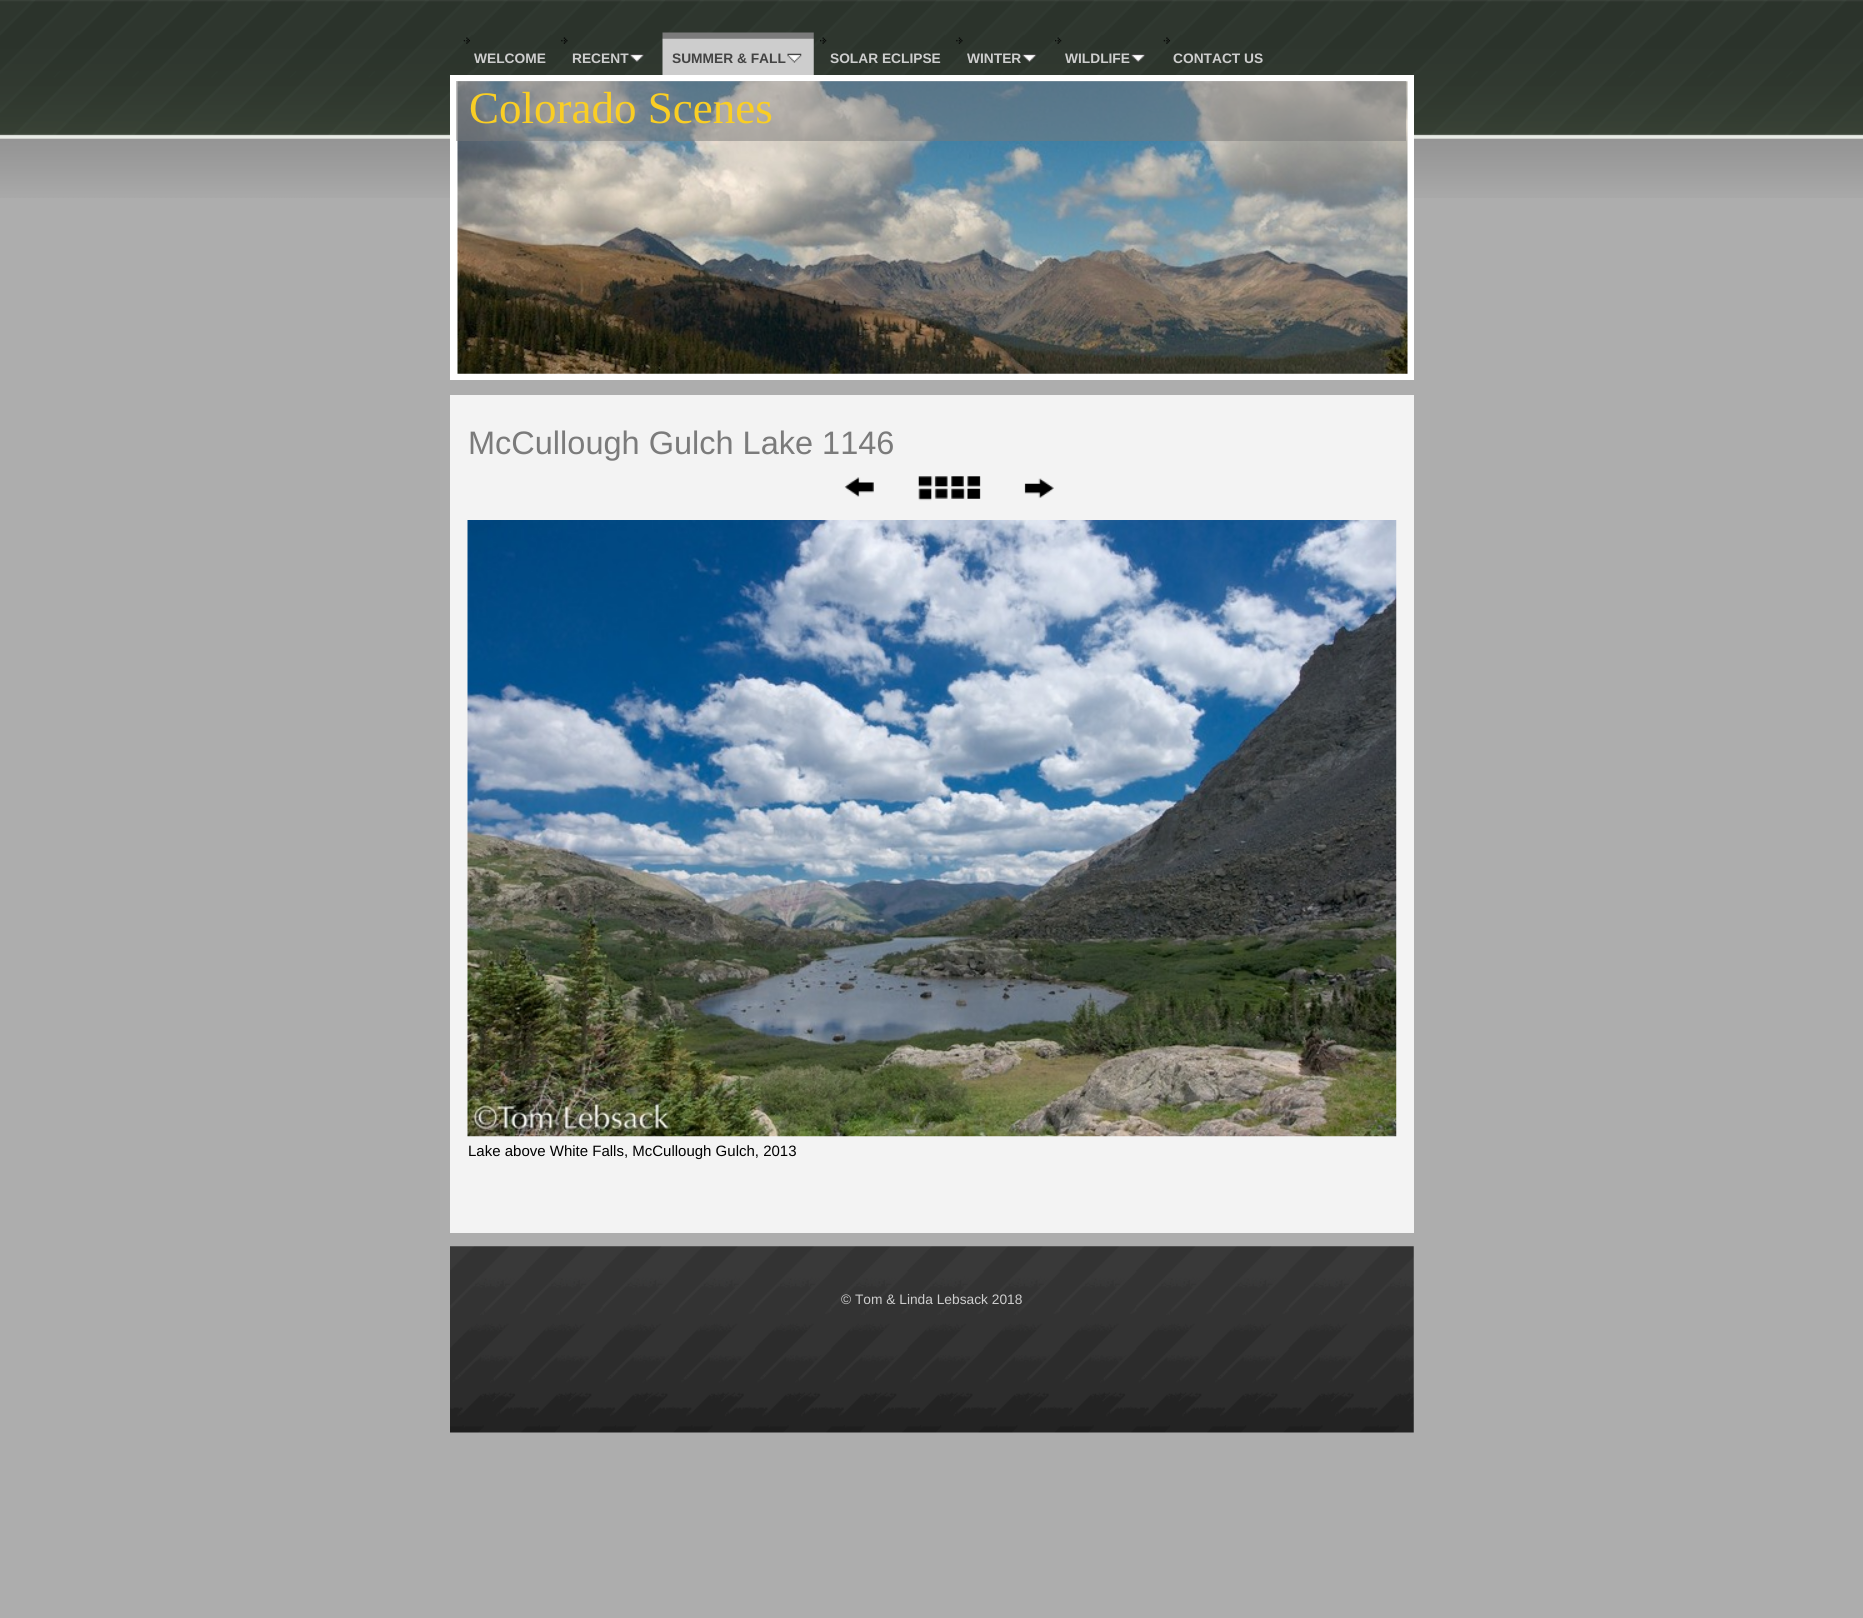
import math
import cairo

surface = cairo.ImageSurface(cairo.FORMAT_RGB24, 1863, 1618)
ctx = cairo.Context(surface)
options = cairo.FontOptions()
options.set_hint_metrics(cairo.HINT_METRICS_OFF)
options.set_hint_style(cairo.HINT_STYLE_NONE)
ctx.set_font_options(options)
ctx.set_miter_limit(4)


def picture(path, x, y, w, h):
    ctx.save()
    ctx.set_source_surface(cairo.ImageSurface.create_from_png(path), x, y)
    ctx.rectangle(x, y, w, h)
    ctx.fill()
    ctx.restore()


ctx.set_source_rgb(0.678, 0.678, 0.678)
ctx.paint()
picture("img1.png", 0, 0, 1863, 198)
picture("img2.png", 463, 37, 7, 7)
ctx.select_font_face("Liberation Sans", cairo.FONT_SLANT_NORMAL, cairo.FONT_WEIGHT_BOLD)
ctx.set_font_size(13.75)
ctx.set_source_rgb(0.808, 0.808, 0.808)
ctx.move_to(474, 63)
ctx.show_text("WELCOME")
picture("img3.png", 561, 37, 7, 7)
ctx.move_to(572, 63)
ctx.show_text("RECENT")
picture("img4.png", 630, 54, 14, 8)
picture("img5.png", 662, 32, 152, 43)
ctx.set_source_rgb(0.263, 0.263, 0.263)
ctx.move_to(672, 63)
ctx.show_text("SUMMER & FALL")
picture("img6.png", 787, 53, 15, 10)
picture("img7.png", 820, 37, 7, 7)
ctx.set_source_rgb(0.808, 0.808, 0.808)
ctx.move_to(830, 63)
ctx.show_text("SOLAR ECLIPSE")
picture("img3.png", 956, 37, 7, 7)
ctx.move_to(967, 63)
ctx.show_text("WINTER")
picture("img8.png", 1022, 54, 15, 9)
picture("img9.png", 1055, 37, 7, 7)
ctx.move_to(1065, 63)
ctx.show_text("WILDLIFE")
picture("img10.png", 1131, 54, 14, 8)
picture("img11.png", 1163, 37, 7, 7)
ctx.move_to(1173, 63)
ctx.show_text("CONTACT US")
ctx.set_source_rgb(1, 1, 1)
ctx.rectangle(450, 75, 964, 305)
ctx.fill()
picture("img12.png", 457, 81, 951, 293)
ctx.set_source_rgba(0.482, 0.482, 0.482, 0.5)
ctx.rectangle(456, 81, 950, 60)
ctx.fill()
ctx.select_font_face("Liberation Serif")
ctx.set_font_size(45)
ctx.set_source_rgb(0.98, 0.808, 0.141)
ctx.move_to(469, 123)
ctx.show_text("Colorado Scenes")
ctx.set_source_rgb(0.953, 0.953, 0.953)
ctx.rectangle(450, 395, 964, 838)
ctx.fill()
ctx.select_font_face("Liberation Sans")
ctx.set_font_size(32.5)
ctx.set_source_rgb(0.482, 0.482, 0.482)
ctx.move_to(468, 454)
ctx.show_text("McCullough Gulch Lake 1146")
picture("img13.png", 844, 477, 30, 20)
picture("img14.png", 918, 476, 63, 25)
picture("img15.png", 1024, 478, 30, 21)
picture("img16.png", 467, 520, 930, 617)
ctx.set_font_size(15)
ctx.set_source_rgb(0, 0, 0)
ctx.move_to(468, 1156)
ctx.show_text("Lake above White Falls, McCullough Gulch, 2013")
picture("img17.png", 450, 1246, 964, 187)
ctx.set_font_size(13.75)
ctx.set_source_rgb(0.808, 0.808, 0.808)
ctx.move_to(841, 1304)
ctx.show_text("© Tom & Linda Lebsack 2018")
surface.write_to_png("page.png")
